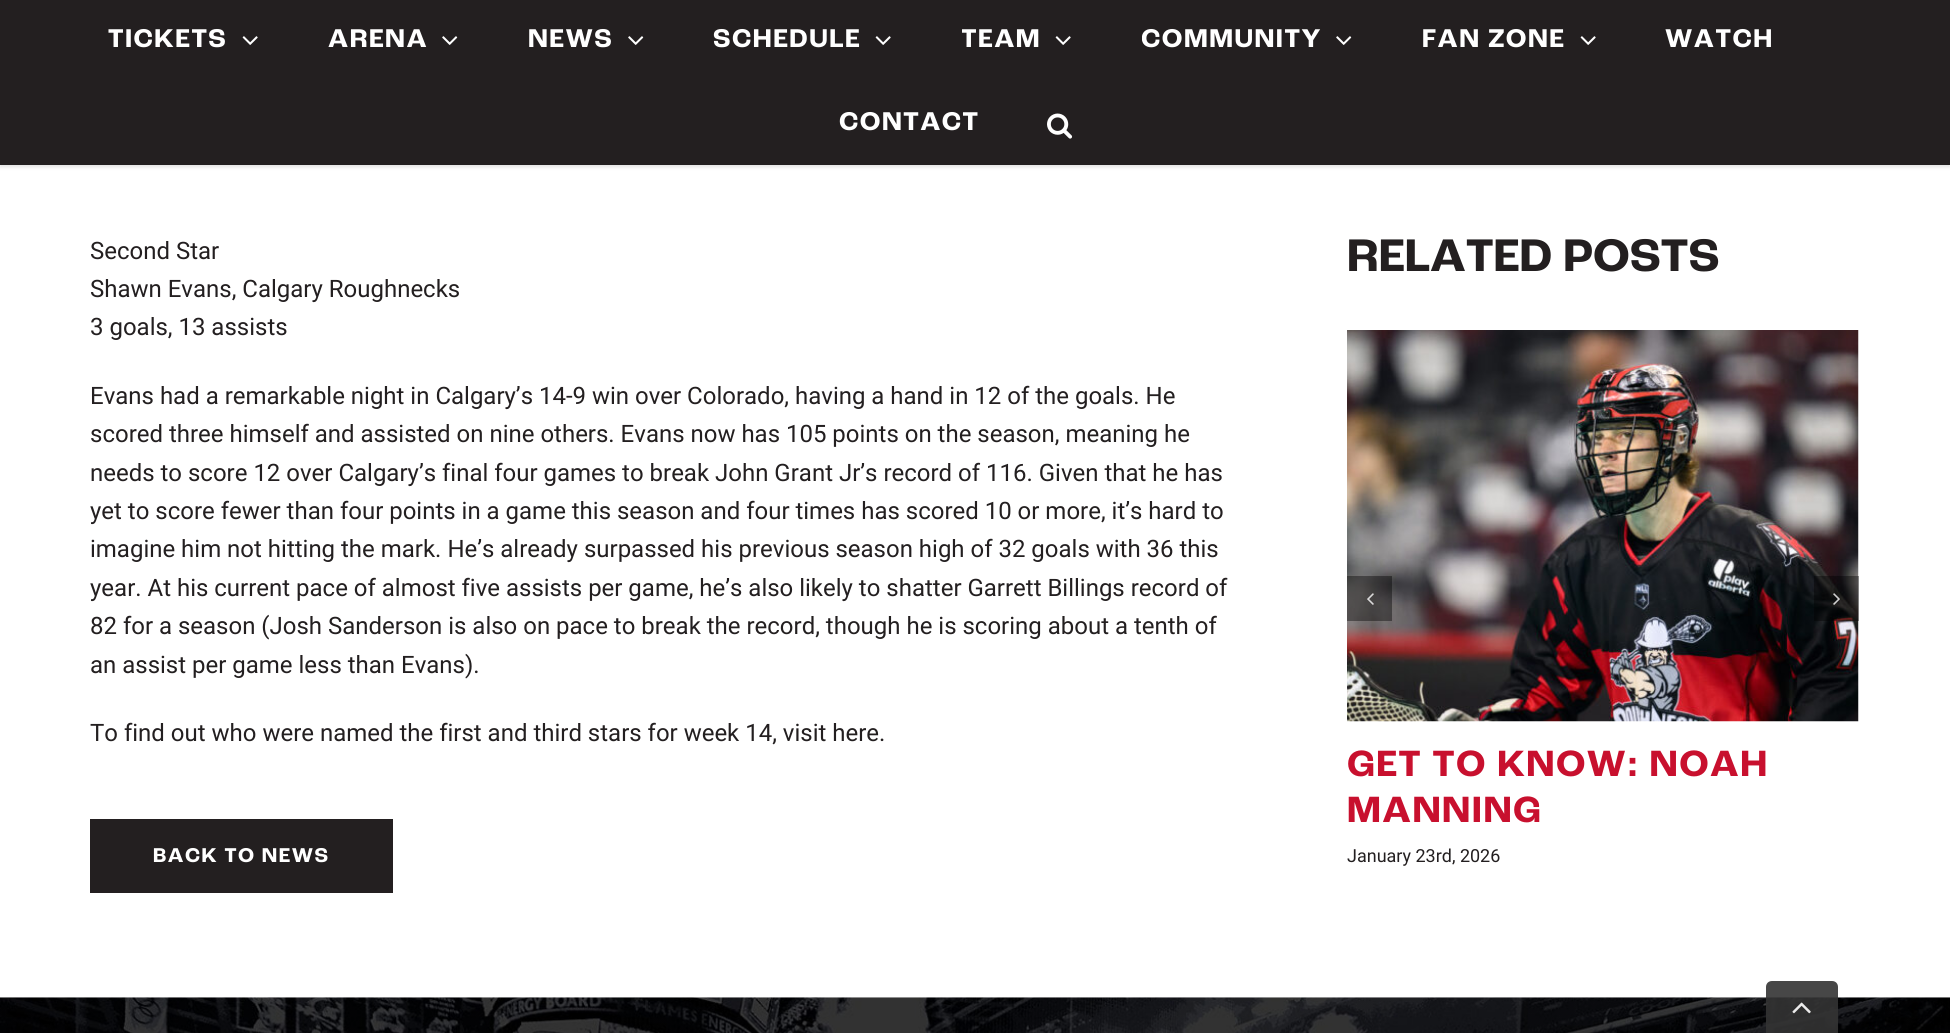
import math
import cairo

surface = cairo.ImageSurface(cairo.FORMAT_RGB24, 1950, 1033)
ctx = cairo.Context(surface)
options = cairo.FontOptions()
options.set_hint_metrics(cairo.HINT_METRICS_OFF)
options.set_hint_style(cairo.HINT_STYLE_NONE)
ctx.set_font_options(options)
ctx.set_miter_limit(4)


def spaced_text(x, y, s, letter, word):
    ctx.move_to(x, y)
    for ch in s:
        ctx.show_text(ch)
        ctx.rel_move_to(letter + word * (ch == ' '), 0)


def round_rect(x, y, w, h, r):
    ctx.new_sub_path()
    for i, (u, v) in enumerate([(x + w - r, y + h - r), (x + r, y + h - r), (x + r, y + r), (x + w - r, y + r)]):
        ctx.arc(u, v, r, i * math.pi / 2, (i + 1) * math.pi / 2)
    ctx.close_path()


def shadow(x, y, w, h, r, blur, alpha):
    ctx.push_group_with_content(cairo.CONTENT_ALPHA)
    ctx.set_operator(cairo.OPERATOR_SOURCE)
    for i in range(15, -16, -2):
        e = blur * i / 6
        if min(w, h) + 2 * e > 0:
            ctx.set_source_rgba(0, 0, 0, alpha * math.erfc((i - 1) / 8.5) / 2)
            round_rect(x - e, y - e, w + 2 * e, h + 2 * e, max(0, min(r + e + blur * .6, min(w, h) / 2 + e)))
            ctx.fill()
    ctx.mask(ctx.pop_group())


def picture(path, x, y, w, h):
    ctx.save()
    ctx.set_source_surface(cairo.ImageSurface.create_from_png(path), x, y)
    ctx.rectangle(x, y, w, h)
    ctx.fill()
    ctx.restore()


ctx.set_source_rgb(1, 1, 1)
ctx.paint()
ctx.set_source_rgb(0, 0, 0)
shadow(0, 2, 1950, 165, 0, 2, 0.12)
ctx.set_source_rgb(0.137, 0.122, 0.125)
ctx.rectangle(0, 0, 1950, 165)
ctx.fill()
ctx.select_font_face("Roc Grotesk", cairo.FONT_SLANT_NORMAL, cairo.FONT_WEIGHT_BOLD)
ctx.set_font_size(27)
ctx.set_source_rgb(1, 1, 1)
spaced_text(108, 47, "TICKETS", 1.5, 0)
picture("img1.png", 242, 36, 16, 9)
spaced_text(328, 47, "ARENA", 1.5, 0)
picture("img2.png", 442, 36, 16, 9)
spaced_text(528, 47, "NEWS", 1.5, 0)
picture("img2.png", 628, 36, 16, 9)
spaced_text(713, 47, "SCHEDULE", 1.5, 0)
picture("img1.png", 875, 36, 16, 9)
ctx.save()
ctx.rectangle(962, 0, 180, 83)
ctx.clip()
spaced_text(961, 47, "TEAM", 1.5, 0)
ctx.restore()
picture("img1.png", 1055, 36, 16, 9)
ctx.save()
ctx.rectangle(1142, 0, 280, 83)
ctx.clip()
spaced_text(1141, 47, "COMMUNITY", 1.5, 0)
ctx.restore()
picture("img2.png", 1336, 36, 16, 9)
spaced_text(1422, 47, "FAN ZONE", 1.5, 0)
picture("img1.png", 1580, 36, 16, 9)
spaced_text(1665, 47, "WATCH", 1.5, 0)
spaced_text(839, 130, "CONTACT", 1.5, 0)
picture("img3.png", 1047, 113, 26, 26)
ctx.select_font_face("Roboto")
ctx.set_font_size(24)
ctx.set_source_rgb(0.137, 0.122, 0.125)
ctx.move_to(90, 259)
ctx.show_text("Second Star")
ctx.move_to(90, 297)
ctx.show_text("Shawn Evans, Calgary Roughnecks")
ctx.move_to(90, 335)
ctx.show_text("3 goals, 13 assists")
ctx.move_to(90, 404)
ctx.show_text("Evans had a remarkable night in Calgary’s 14-9 win over Colorado, having a hand in 12 of the goals. He")
ctx.move_to(90, 442)
ctx.show_text("scored three himself and assisted on nine others. Evans now has 105 points on the season, meaning he")
ctx.move_to(90, 481)
ctx.show_text("needs to score 12 over Calgary’s final four games to break John Grant Jr’s record of 116. Given that he has")
ctx.move_to(90, 519)
ctx.show_text("yet to score fewer than four points in a game this season and four times has scored 10 or more, it’s hard to")
ctx.move_to(90, 557)
ctx.show_text("imagine him not hitting the mark. He’s already surpassed his previous season high of 32 goals with 36 this")
ctx.move_to(90, 596)
ctx.show_text("year. At his current pace of almost five assists per game, he’s also likely to shatter Garrett Billings record of")
ctx.move_to(90, 634)
ctx.show_text("82 for a season (Josh Sanderson is also on pace to break the record, though he is scoring about a tenth of")
ctx.move_to(90, 673)
ctx.show_text("an assist per game less than Evans).")
ctx.move_to(90, 741)
ctx.show_text("To find out who were named the first and third stars for week 14, visit here.")
ctx.rectangle(90, 819, 303, 74)
ctx.fill()
ctx.select_font_face("Roc Grotesk", cairo.FONT_SLANT_NORMAL, cairo.FONT_WEIGHT_BOLD)
ctx.set_font_size(21)
ctx.set_source_rgb(1, 1, 1)
spaced_text(153, 862, "BACK TO NEWS", 1.5, 0)
ctx.set_font_size(48)
ctx.set_source_rgb(0.137, 0.122, 0.125)
ctx.move_to(1347, 271)
ctx.show_text("RELATED POSTS")
picture("img6.png", 1347, 330, 512, 392)
ctx.set_source_rgba(0, 0, 0, 0.4)
ctx.rectangle(1347, 576, 45, 45)
ctx.fill()
picture("img4.png", 1367, 593, 7, 12)
ctx.rectangle(1814, 576, 45, 45)
ctx.fill()
picture("img5.png", 1833, 593, 7, 12)
ctx.set_font_size(38.4)
ctx.set_source_rgb(0.784, 0.063, 0.18)
spaced_text(1347, 776, "GET TO KNOW: NOAH", 1.5, 0)
spaced_text(1347, 822, "MANNING", 1.5, 0)
ctx.select_font_face("Roboto")
ctx.set_font_size(18)
ctx.set_source_rgb(0.137, 0.122, 0.125)
ctx.move_to(1347, 862)
ctx.show_text("January 23rd, 2026")
picture("img7.png", 0, 997, 1950, 36)
ctx.set_source_rgba(0.2, 0.2, 0.2, 0.9)
ctx.new_path()
ctx.move_to(1772, 981)
ctx.line_to(1832, 981)
ctx.curve_to(1835.5, 981, 1838, 983.5, 1838, 987)
ctx.line_to(1838, 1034)
ctx.line_to(1766, 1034)
ctx.line_to(1766, 987)
ctx.curve_to(1766, 983.5, 1768.5, 981, 1772, 981)
ctx.close_path()
ctx.fill()
picture("img8.png", 1792, 1002, 19, 12)
surface.write_to_png("page.png")
